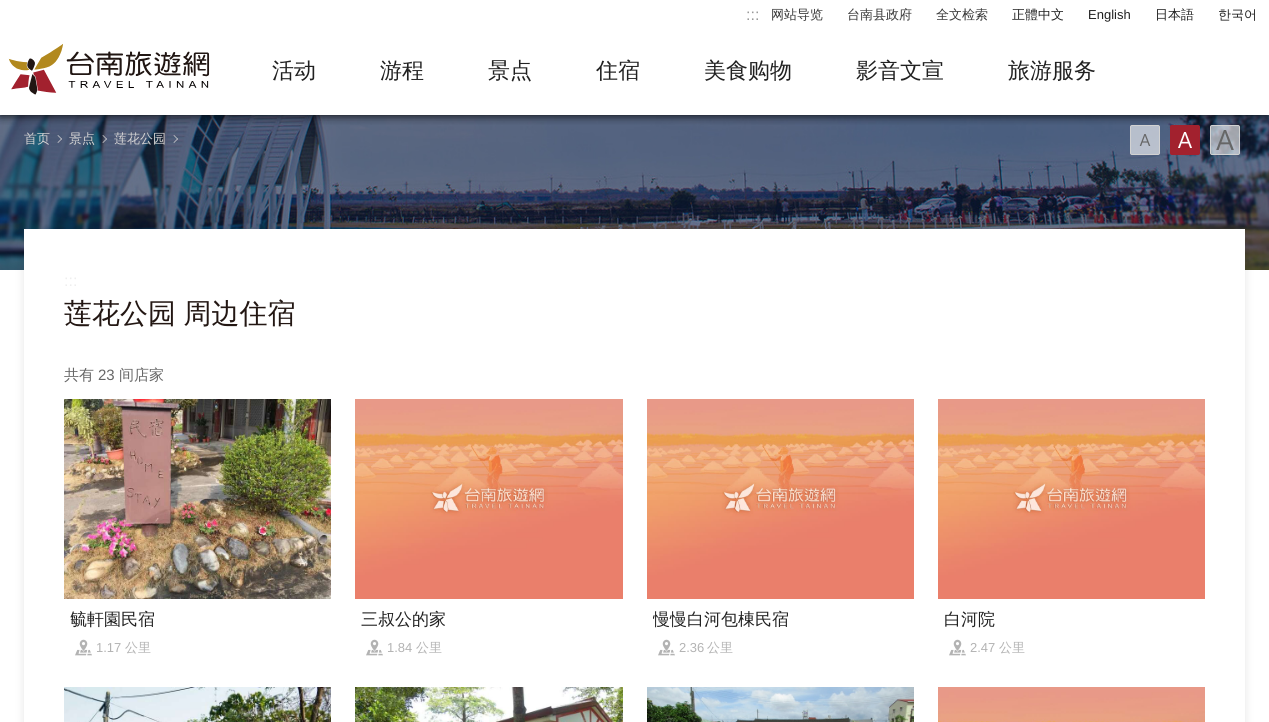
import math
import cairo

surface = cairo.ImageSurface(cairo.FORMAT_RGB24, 1269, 722)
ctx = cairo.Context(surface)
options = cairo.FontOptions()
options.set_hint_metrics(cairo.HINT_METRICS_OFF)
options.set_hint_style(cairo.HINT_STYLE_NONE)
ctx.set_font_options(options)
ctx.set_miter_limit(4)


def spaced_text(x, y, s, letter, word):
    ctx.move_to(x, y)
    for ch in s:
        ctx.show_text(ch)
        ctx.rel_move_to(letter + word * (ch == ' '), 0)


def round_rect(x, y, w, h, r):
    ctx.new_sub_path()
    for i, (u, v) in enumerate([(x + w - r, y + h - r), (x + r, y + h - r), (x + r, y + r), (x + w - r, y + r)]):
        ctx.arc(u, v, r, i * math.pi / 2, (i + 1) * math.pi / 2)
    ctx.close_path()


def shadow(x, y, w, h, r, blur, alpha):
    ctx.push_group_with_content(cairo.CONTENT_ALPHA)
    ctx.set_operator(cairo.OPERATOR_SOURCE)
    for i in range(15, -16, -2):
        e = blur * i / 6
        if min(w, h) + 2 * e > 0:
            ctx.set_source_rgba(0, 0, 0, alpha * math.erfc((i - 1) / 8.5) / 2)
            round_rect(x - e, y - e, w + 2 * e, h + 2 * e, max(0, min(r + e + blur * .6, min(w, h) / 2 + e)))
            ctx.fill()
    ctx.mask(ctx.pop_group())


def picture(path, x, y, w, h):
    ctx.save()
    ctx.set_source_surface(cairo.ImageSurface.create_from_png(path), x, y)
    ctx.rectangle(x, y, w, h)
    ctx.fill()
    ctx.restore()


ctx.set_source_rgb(1, 1, 1)
ctx.paint()
picture("img2.png", 0, 115, 1269, 155)
ctx.set_source_rgba(1, 1, 1, 0.6)
round_rect(1130.5, 125.5, 29, 29, 1.5)
ctx.fill_preserve()
ctx.set_source_rgb(0.824, 0.824, 0.824)
ctx.set_line_width(1)
ctx.stroke()
ctx.set_source_rgb(0.635, 0.129, 0.18)
round_rect(1170.5, 125.5, 29, 29, 1.5)
ctx.fill_preserve()
ctx.stroke()
ctx.set_source_rgba(1, 1, 1, 0.6)
round_rect(1210.5, 125.5, 29, 29, 1.5)
ctx.fill_preserve()
ctx.set_source_rgb(0.824, 0.824, 0.824)
ctx.stroke()
picture("img5.png", 1216, 130, 18, 20)
ctx.save()
ctx.rectangle(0, 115, 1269, 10)
ctx.clip()
ctx.set_source_rgb(0, 0, 0)
shadow(0, 0, 1269, 115, 0, 5, 1)
ctx.restore()
picture("img1.png", 8, 44, 202, 51)
ctx.select_font_face("Liberation Sans")
ctx.set_font_size(16)
ctx.set_source_rgb(0.6, 0.6, 0.6)
ctx.move_to(746, 20)
ctx.show_text(":::")
ctx.select_font_face("WenQuanYi Zen Hei Medium")
ctx.set_font_size(13)
ctx.set_source_rgb(0.22, 0.22, 0.22)
ctx.move_to(771, 19)
ctx.show_text("网站导览")
ctx.move_to(847, 19)
ctx.show_text("台南县政府")
ctx.move_to(936, 19)
ctx.show_text("全文检索")
ctx.set_source_rgb(0.129, 0.129, 0.129)
ctx.move_to(1012, 19)
ctx.show_text("正體中文")
ctx.select_font_face("Liberation Sans")
ctx.move_to(1088, 19)
ctx.show_text("English")
ctx.select_font_face("WenQuanYi Zen Hei Medium")
ctx.move_to(1155, 19)
ctx.show_text("日本語")
ctx.move_to(1218, 19)
ctx.show_text("한국어")
ctx.set_font_size(22)
ctx.move_to(272, 78)
ctx.show_text("活动")
ctx.move_to(380, 78)
ctx.show_text("游程")
ctx.move_to(488, 78)
ctx.show_text("景点")
ctx.move_to(596, 78)
ctx.show_text("住宿")
ctx.move_to(704, 78)
ctx.show_text("美食购物")
ctx.move_to(856, 78)
ctx.show_text("影音文宣")
ctx.move_to(1008, 78)
ctx.show_text("旅游服务")
ctx.set_font_size(13)
ctx.set_source_rgb(0.835, 0.831, 0.831)
ctx.move_to(24, 143)
ctx.show_text("首页")
ctx.new_path()
ctx.move_to(57.5, 135.5)
ctx.line_to(58, 135)
ctx.line_to(62, 139)
ctx.line_to(61.5, 139.5)
ctx.close_path()
ctx.fill()
ctx.new_path()
ctx.move_to(57.5, 142.5)
ctx.line_to(61.5, 138.5)
ctx.line_to(62, 139)
ctx.line_to(58, 143)
ctx.close_path()
ctx.move_to(102.5, 135.5)
ctx.line_to(103, 135)
ctx.line_to(107, 139)
ctx.line_to(106.5, 139.5)
ctx.close_path()
ctx.fill()
ctx.move_to(69, 143)
ctx.show_text("景点")
ctx.new_path()
ctx.move_to(102.5, 142.5)
ctx.line_to(106.5, 138.5)
ctx.line_to(107, 139)
ctx.line_to(103, 143)
ctx.close_path()
ctx.fill()
ctx.move_to(114, 143)
ctx.show_text("莲花公园")
ctx.new_path()
ctx.move_to(173.5, 135.5)
ctx.line_to(174, 135)
ctx.line_to(178, 139)
ctx.line_to(177.5, 139.5)
ctx.close_path()
ctx.fill()
ctx.new_path()
ctx.move_to(173.5, 142.5)
ctx.line_to(177.5, 138.5)
ctx.line_to(178, 139)
ctx.line_to(174, 143)
ctx.close_path()
ctx.fill()
picture("img3.png", 1139, 134, 12, 12)
picture("img4.png", 1178, 132, 14, 16)
ctx.set_source_rgb(0, 0, 0)
shadow(24, 229, 1221, 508, 0, 5, 0.1)
ctx.set_source_rgb(1, 1, 1)
ctx.rectangle(24, 229, 1221, 493)
ctx.fill()
ctx.select_font_face("Liberation Sans")
ctx.set_font_size(16)
ctx.set_source_rgb(0.933, 0.933, 0.933)
ctx.move_to(64, 286)
ctx.show_text(":::")
ctx.select_font_face("WenQuanYi Zen Hei Medium")
ctx.set_font_size(28)
ctx.set_source_rgb(0.137, 0.09, 0.078)
spaced_text(64, 323, "莲花公园 周边住宿", 0, -1)
ctx.set_font_size(15)
ctx.set_source_rgb(0.4, 0.4, 0.4)
ctx.move_to(64, 380)
ctx.show_text("共有")
ctx.select_font_face("Liberation Sans")
ctx.move_to(98, 380)
ctx.show_text("23")
ctx.select_font_face("WenQuanYi Zen Hei Medium")
ctx.move_to(119, 380)
ctx.show_text("间店家")
picture("img6.png", 64, 399, 267, 200)
ctx.set_font_size(17)
ctx.set_source_rgb(0.129, 0.129, 0.129)
ctx.move_to(70, 625)
ctx.show_text("毓軒園民宿")
picture("img7.png", 75, 639, 17, 17)
ctx.select_font_face("Liberation Sans")
ctx.set_font_size(13)
ctx.set_source_rgb(0.702, 0.702, 0.702)
ctx.move_to(96, 652)
ctx.show_text("1.17")
ctx.select_font_face("WenQuanYi Zen Hei Medium")
ctx.move_to(125, 652)
ctx.show_text("公里")
picture("img8.png", 355, 399, 268, 200)
ctx.set_font_size(17)
ctx.set_source_rgb(0.129, 0.129, 0.129)
ctx.move_to(361, 625)
ctx.show_text("三叔公的家")
picture("img7.png", 366, 639, 17, 17)
ctx.select_font_face("Liberation Sans")
ctx.set_font_size(13)
ctx.set_source_rgb(0.702, 0.702, 0.702)
ctx.move_to(387, 652)
ctx.show_text("1.84")
ctx.select_font_face("WenQuanYi Zen Hei Medium")
ctx.move_to(416, 652)
ctx.show_text("公里")
picture("img9.png", 647, 399, 267, 200)
ctx.save()
ctx.rectangle(653, 609, 255, 22)
ctx.clip()
ctx.set_font_size(17)
ctx.set_source_rgb(0.129, 0.129, 0.129)
ctx.move_to(653, 625)
ctx.show_text("慢慢白河包棟民宿")
ctx.restore()
picture("img7.png", 658, 639, 17, 17)
ctx.select_font_face("Liberation Sans")
ctx.move_to(679, 652)
ctx.show_text("2.36")
ctx.select_font_face("WenQuanYi Zen Hei Medium")
ctx.move_to(707, 652)
ctx.show_text("公里")
picture("img10.png", 938, 399, 267, 200)
ctx.set_font_size(17)
ctx.set_source_rgb(0.129, 0.129, 0.129)
ctx.move_to(944, 625)
ctx.show_text("白河院")
picture("img7.png", 949, 639, 17, 17)
ctx.select_font_face("Liberation Sans")
ctx.set_font_size(13)
ctx.set_source_rgb(0.702, 0.702, 0.702)
ctx.move_to(970, 652)
ctx.show_text("2.47")
ctx.select_font_face("WenQuanYi Zen Hei Medium")
ctx.move_to(999, 652)
ctx.show_text("公里")
picture("img11.png", 64, 687, 267, 35)
picture("img12.png", 355, 687, 268, 35)
picture("img13.png", 647, 687, 267, 35)
picture("img14.png", 938, 687, 267, 35)
surface.write_to_png("page.png")
